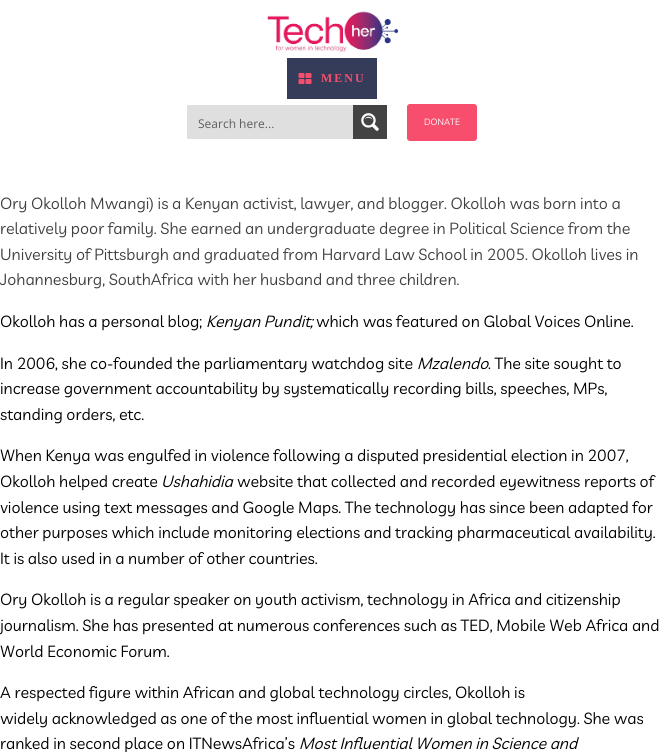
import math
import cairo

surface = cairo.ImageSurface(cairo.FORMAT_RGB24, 664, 752)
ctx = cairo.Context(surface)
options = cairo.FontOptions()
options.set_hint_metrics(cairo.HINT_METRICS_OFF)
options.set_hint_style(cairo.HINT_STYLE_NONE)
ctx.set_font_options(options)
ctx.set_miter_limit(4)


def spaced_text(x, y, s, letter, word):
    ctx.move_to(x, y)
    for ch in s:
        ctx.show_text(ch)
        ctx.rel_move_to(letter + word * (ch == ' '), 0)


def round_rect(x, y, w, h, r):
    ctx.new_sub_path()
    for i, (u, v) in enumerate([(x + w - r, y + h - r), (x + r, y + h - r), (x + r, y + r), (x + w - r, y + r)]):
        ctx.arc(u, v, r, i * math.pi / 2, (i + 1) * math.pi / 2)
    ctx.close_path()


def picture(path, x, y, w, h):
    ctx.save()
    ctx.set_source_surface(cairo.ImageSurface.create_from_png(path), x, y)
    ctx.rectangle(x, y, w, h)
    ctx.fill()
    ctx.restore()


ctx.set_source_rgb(1, 1, 1)
ctx.paint()
picture("img1.png", 267, 11, 132, 41)
ctx.set_source_rgb(0.208, 0.235, 0.349)
ctx.rectangle(287, 58, 90, 41)
ctx.fill()
picture("img2.png", 298, 73, 14, 11)
ctx.select_font_face("Liberation Serif", cairo.FONT_SLANT_NORMAL, cairo.FONT_WEIGHT_BOLD)
ctx.set_font_size(12)
ctx.set_source_rgb(0.965, 0.306, 0.431)
spaced_text(321, 82, "MENU", 2, 0)
ctx.set_source_rgb(0.878, 0.875, 0.875)
ctx.rectangle(187, 105, 166, 34)
ctx.fill()
ctx.select_font_face("Open Sans")
ctx.set_source_rgb(0.369, 0.369, 0.369)
ctx.move_to(198, 128)
ctx.show_text("Search here...")
ctx.set_source_rgb(0.263, 0.263, 0.263)
ctx.rectangle(353, 105, 34, 34)
ctx.fill()
picture("img3.png", 361, 113, 18, 18)
ctx.set_source_rgb(0.965, 0.306, 0.431)
round_rect(407.5, 104.5, 69, 36, 2.5)
ctx.fill_preserve()
ctx.set_line_width(1)
ctx.stroke()
ctx.select_font_face("Livvic")
ctx.set_font_size(9)
ctx.set_source_rgb(1, 1, 1)
ctx.move_to(424, 125)
ctx.show_text("DONATE")
ctx.set_font_size(16)
ctx.set_source_rgb(0.251, 0.251, 0.251)
ctx.move_to(0, 209)
ctx.show_text("Ory Okolloh Mwangi) is a Kenyan activist, lawyer, and blogger. Okolloh was born into a")
ctx.move_to(0, 234)
ctx.show_text("relatively poor family. She earned an undergraduate degree in Political Science from the")
ctx.move_to(0, 260)
ctx.show_text("University of Pittsburgh and graduated from Harvard Law School in 2005. Okolloh lives in")
ctx.move_to(0, 285)
ctx.show_text("Johannesburg, SouthAfrica with her husband and three children.")
ctx.set_source_rgb(0, 0, 0)
ctx.move_to(0, 327)
ctx.show_text("Okolloh has a personal blog;")
ctx.select_font_face("Livvic", cairo.FONT_SLANT_ITALIC)
ctx.move_to(206, 327)
ctx.show_text("Kenyan Pundit;")
ctx.select_font_face("Livvic")
ctx.move_to(316, 327)
ctx.show_text("which was featured on Global Voices Online.")
ctx.move_to(0, 369)
ctx.show_text("In 2006, she co-founded the parliamentary watchdog site")
ctx.select_font_face("Livvic", cairo.FONT_SLANT_ITALIC)
ctx.move_to(417, 369)
ctx.show_text("Mzalendo")
ctx.select_font_face("Livvic")
ctx.move_to(488, 369)
ctx.show_text(". The site sought to")
ctx.move_to(0, 394)
ctx.show_text("increase government accountability by systematically recording bills, speeches, MPs,")
ctx.move_to(0, 420)
ctx.show_text("standing orders, etc.")
ctx.move_to(0, 461)
ctx.show_text("When Kenya was engulfed in violence following a disputed presidential election in 2007,")
ctx.move_to(0, 487)
ctx.show_text("Okolloh helped create")
ctx.select_font_face("Livvic", cairo.FONT_SLANT_ITALIC)
ctx.move_to(161, 487)
ctx.show_text("Ushahidia")
ctx.select_font_face("Livvic")
ctx.move_to(237, 487)
ctx.show_text("website that collected and recorded eyewitness reports of")
ctx.move_to(0, 513)
ctx.show_text("violence using text messages and Google Maps. The technology has since been adapted for")
ctx.move_to(0, 538)
ctx.show_text("other purposes which include monitoring elections and tracking pharmaceutical availability.")
ctx.move_to(0, 564)
ctx.show_text("It is also used in a number of other countries.")
ctx.move_to(0, 605)
ctx.show_text("Ory Okolloh is a regular speaker on youth activism, technology in Africa and citizenship")
ctx.move_to(0, 631)
ctx.show_text("journalism. She has presented at numerous conferences such as TED, Mobile Web Africa and")
ctx.move_to(0, 657)
ctx.show_text("World Economic Forum.")
ctx.move_to(0, 698)
ctx.show_text("A respected figure within African and global technology circles, Okolloh is")
ctx.move_to(0, 724)
ctx.show_text("widely acknowledged as one of the most influential women in global technology. She was")
ctx.move_to(0, 749)
ctx.show_text("ranked in second place on ITNewsAfrica’s")
ctx.select_font_face("Livvic", cairo.FONT_SLANT_ITALIC)
ctx.move_to(299, 749)
ctx.show_text("Most Influential Women in Science and")
surface.write_to_png("page.png")
